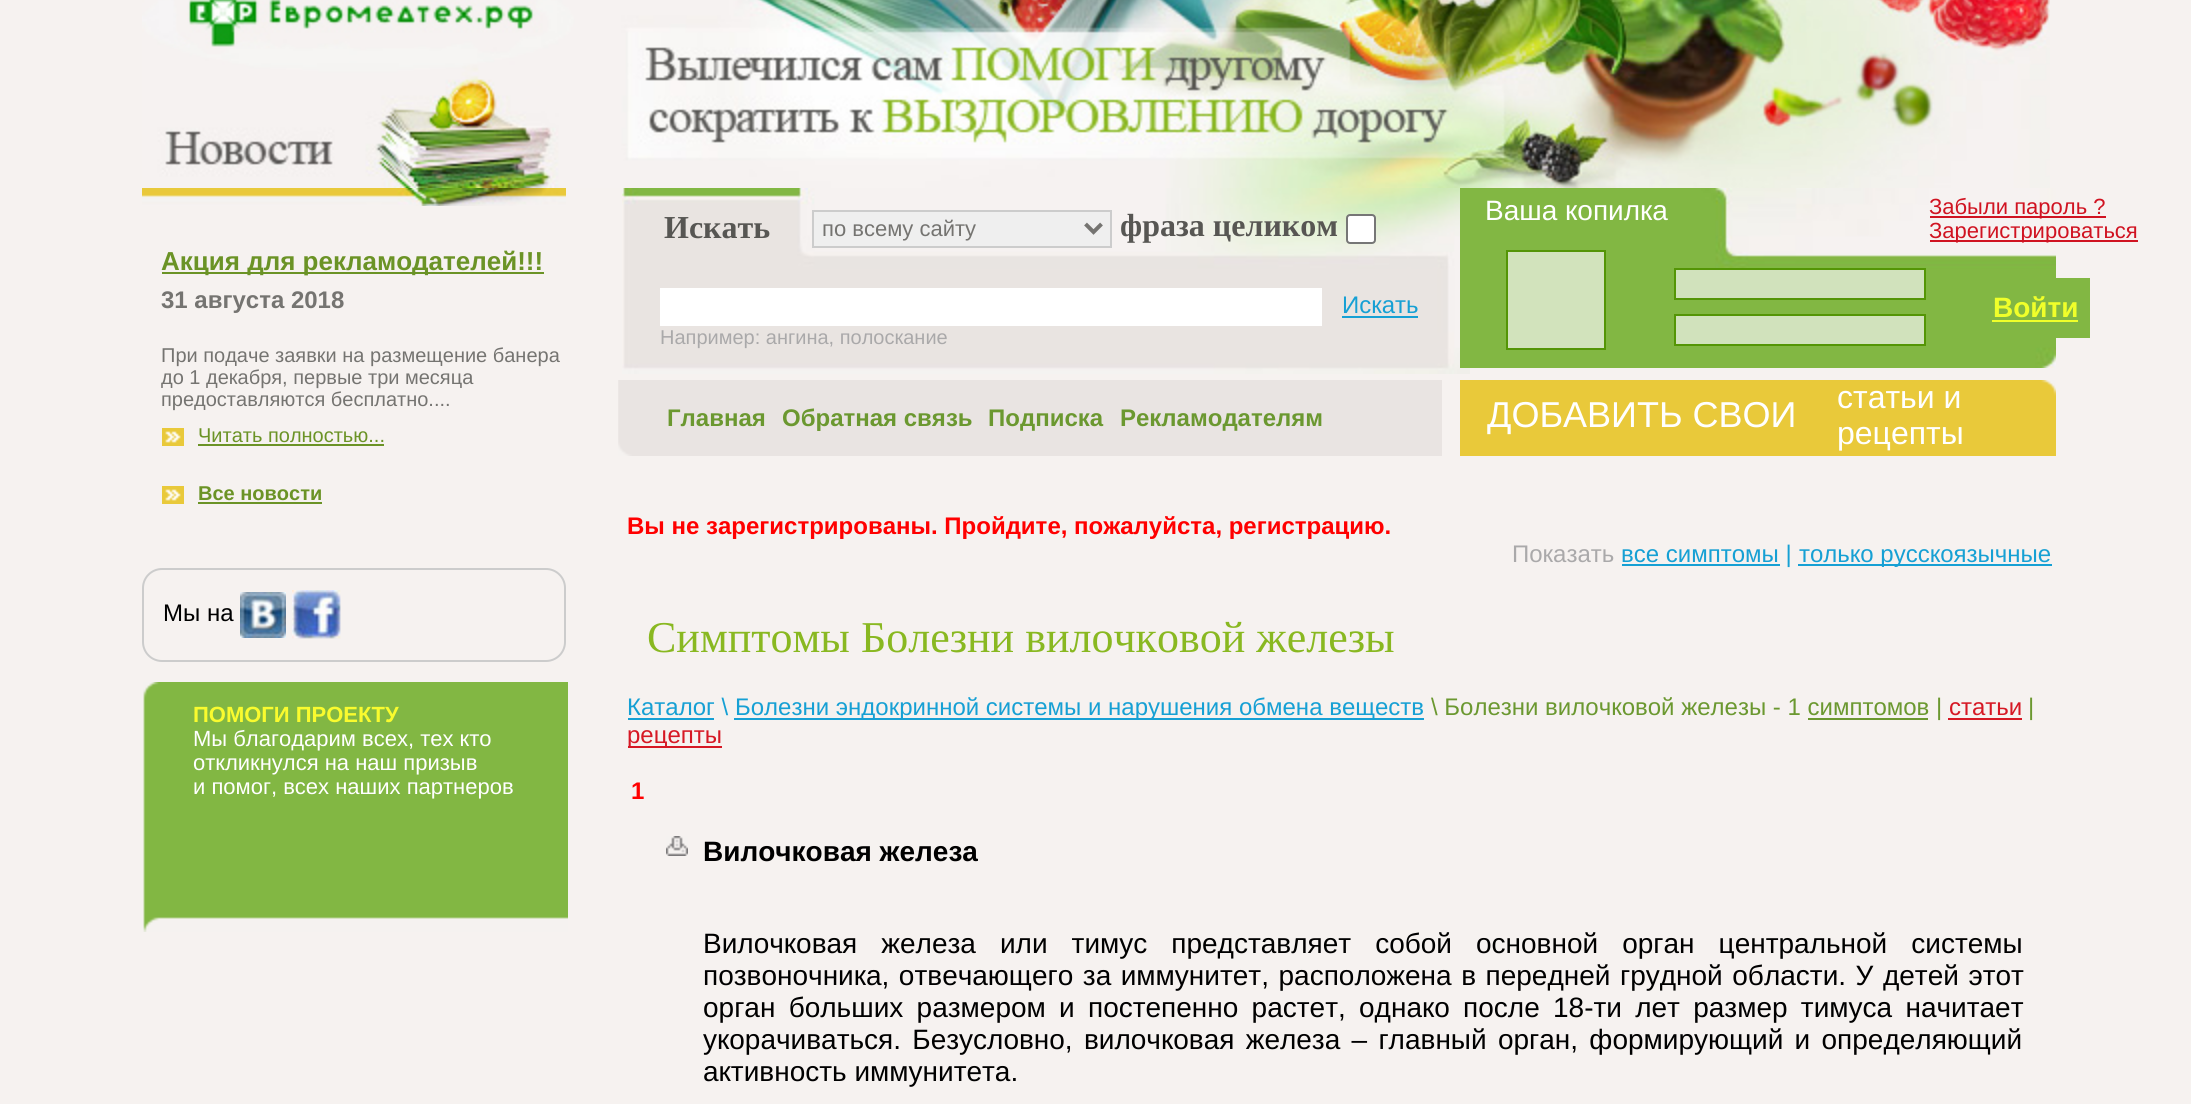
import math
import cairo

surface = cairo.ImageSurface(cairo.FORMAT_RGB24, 2191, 1104)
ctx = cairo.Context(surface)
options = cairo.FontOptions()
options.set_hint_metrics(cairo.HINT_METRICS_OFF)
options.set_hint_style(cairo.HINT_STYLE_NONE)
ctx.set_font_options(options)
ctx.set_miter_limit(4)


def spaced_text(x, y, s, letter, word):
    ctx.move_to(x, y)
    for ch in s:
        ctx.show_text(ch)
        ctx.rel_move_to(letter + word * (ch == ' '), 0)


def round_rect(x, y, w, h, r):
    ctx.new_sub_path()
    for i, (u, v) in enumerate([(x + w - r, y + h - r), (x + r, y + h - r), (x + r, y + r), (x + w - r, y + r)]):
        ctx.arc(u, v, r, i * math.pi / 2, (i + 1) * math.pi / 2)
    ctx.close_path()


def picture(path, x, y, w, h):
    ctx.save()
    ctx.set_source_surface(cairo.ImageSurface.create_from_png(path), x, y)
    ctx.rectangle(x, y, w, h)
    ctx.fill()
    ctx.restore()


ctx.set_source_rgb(0.961, 0.949, 0.941)
ctx.paint()
picture("img1.png", 142, 0, 1908, 188)
picture("img2.png", 142, 188, 424, 18)
ctx.set_source_rgb(0.42, 0.576, 0.149)
ctx.rectangle(162, 272, 382, 2)
ctx.fill()
ctx.select_font_face("Liberation Sans", cairo.FONT_SLANT_NORMAL, cairo.FONT_WEIGHT_BOLD)
ctx.set_font_size(26)
ctx.move_to(161, 270)
ctx.show_text("Акция для рекламодателей!!!")
ctx.set_font_size(24)
ctx.set_source_rgb(0.459, 0.455, 0.443)
ctx.move_to(161, 308)
ctx.show_text("31 августа 2018")
ctx.select_font_face("Liberation Sans")
ctx.set_font_size(20)
ctx.move_to(161, 362)
ctx.show_text("При подаче заявки на размещение банера")
ctx.move_to(161, 384)
ctx.show_text("до 1 декабря, первые три месяца")
ctx.move_to(161, 406)
ctx.show_text("предоставляются бесплатно....")
picture("img3.png", 162, 428, 22, 18)
ctx.set_source_rgb(0.42, 0.576, 0.149)
ctx.move_to(198, 442)
ctx.show_text("Читать полностью...")
ctx.rectangle(198, 444, 186, 2)
ctx.fill()
picture("img3.png", 162, 486, 22, 18)
ctx.select_font_face("Liberation Sans", cairo.FONT_SLANT_NORMAL, cairo.FONT_WEIGHT_BOLD)
ctx.move_to(198, 500)
ctx.show_text("Все новости")
ctx.rectangle(198, 502, 124, 2)
ctx.fill()
round_rect(143, 569, 422, 92, 19)
ctx.set_source_rgb(0.8, 0.8, 0.8)
ctx.stroke()
ctx.select_font_face("Liberation Sans")
ctx.set_font_size(24)
ctx.set_source_rgb(0, 0, 0)
ctx.move_to(163, 621)
ctx.show_text("Мы на")
picture("img4.png", 240, 592, 46, 46)
picture("img5.png", 292, 590, 49, 49)
picture("img6.png", 143, 682, 425, 250)
ctx.select_font_face("Liberation Sans", cairo.FONT_SLANT_NORMAL, cairo.FONT_WEIGHT_BOLD)
ctx.set_font_size(22)
ctx.set_source_rgb(0.973, 0.984, 0.18)
ctx.move_to(193, 722)
ctx.show_text("ПОМОГИ ПРОЕКТУ")
ctx.select_font_face("Liberation Sans")
ctx.set_source_rgb(1, 1, 1)
ctx.move_to(193, 746)
ctx.show_text("Мы благодарим всех, тех кто")
ctx.move_to(193, 770)
ctx.show_text("откликнулся на наш призыв")
ctx.move_to(193, 794)
ctx.show_text("и помог, всех наших партнеров")
picture("img7.png", 622, 188, 848, 186)
ctx.select_font_face("Liberation Serif", cairo.FONT_SLANT_NORMAL, cairo.FONT_WEIGHT_BOLD)
ctx.set_font_size(32)
ctx.set_source_rgb(0.341, 0.337, 0.325)
ctx.move_to(664, 238)
ctx.show_text("Искать")
ctx.set_source_rgb(0.937, 0.937, 0.937)
ctx.rectangle(813, 211, 298, 36)
ctx.fill_preserve()
ctx.set_source_rgb(0.8, 0.8, 0.8)
ctx.stroke()
ctx.new_path()
ctx.move_to(1085.5, 224)
ctx.line_to(1093.5, 232)
ctx.line_to(1101.5, 224)
ctx.set_source_rgb(0.459, 0.455, 0.443)
ctx.set_line_width(4)
ctx.stroke()
ctx.select_font_face("Liberation Sans")
ctx.set_font_size(22)
ctx.move_to(822, 236)
ctx.show_text("по всему сайту")
ctx.select_font_face("Liberation Serif", cairo.FONT_SLANT_NORMAL, cairo.FONT_WEIGHT_BOLD)
ctx.set_font_size(32)
ctx.set_source_rgb(0.341, 0.337, 0.325)
ctx.move_to(1120, 236)
ctx.show_text("фраза целиком")
ctx.set_source_rgb(1, 1, 1)
round_rect(1347, 215, 28, 28, 3)
ctx.fill_preserve()
ctx.set_source_rgb(0.463, 0.463, 0.463)
ctx.set_line_width(2)
ctx.stroke()
ctx.set_source_rgb(1, 1, 1)
ctx.rectangle(660, 288, 662, 38)
ctx.fill()
ctx.select_font_face("Liberation Sans")
ctx.set_font_size(24)
ctx.set_source_rgb(0.086, 0.627, 0.831)
ctx.move_to(1342, 313)
ctx.show_text("Искать")
ctx.rectangle(1342, 316, 76, 2)
ctx.fill()
ctx.set_font_size(20)
ctx.set_source_rgb(0.667, 0.663, 0.667)
ctx.move_to(660, 344)
ctx.show_text("Например: ангина, полоскание")
picture("img8.png", 618, 380, 824, 76)
ctx.select_font_face("Liberation Sans", cairo.FONT_SLANT_NORMAL, cairo.FONT_WEIGHT_BOLD)
ctx.set_font_size(24)
ctx.set_source_rgb(0.42, 0.596, 0.188)
ctx.move_to(667, 426)
ctx.show_text("Главная")
ctx.move_to(782, 426)
ctx.show_text("Обратная связь")
ctx.move_to(988, 426)
ctx.show_text("Подписка")
ctx.move_to(1120, 426)
ctx.show_text("Рекламодателям")
picture("img9.png", 1460, 188, 596, 180)
ctx.select_font_face("Liberation Sans")
ctx.set_font_size(28)
ctx.set_source_rgb(1, 1, 1)
ctx.move_to(1485, 220)
ctx.show_text("Ваша копилка")
ctx.set_source_rgb(0.816, 0.078, 0.129)
ctx.rectangle(1930, 216, 176, 2)
ctx.fill()
ctx.set_font_size(22)
ctx.move_to(1929, 214)
ctx.show_text("Забыли пароль ?")
ctx.rectangle(1930, 240, 208, 2)
ctx.fill()
ctx.move_to(1929, 238)
ctx.show_text("Зарегистрироваться")
ctx.set_source_rgb(0.824, 0.89, 0.737)
ctx.rectangle(1507, 251, 98, 98)
ctx.fill_preserve()
ctx.set_source_rgb(0.329, 0.584, 0.024)
ctx.stroke()
ctx.set_source_rgb(0.82, 0.886, 0.737)
ctx.rectangle(1675, 269, 250, 30)
ctx.fill_preserve()
ctx.set_source_rgb(0.329, 0.584, 0.024)
ctx.stroke()
ctx.set_source_rgb(0.82, 0.886, 0.737)
ctx.rectangle(1675, 315, 250, 30)
ctx.fill_preserve()
ctx.set_source_rgb(0.329, 0.584, 0.024)
ctx.stroke()
ctx.set_source_rgb(0.51, 0.718, 0.263)
ctx.rectangle(2056, 278, 34, 60)
ctx.fill()
ctx.select_font_face("Liberation Sans", cairo.FONT_SLANT_NORMAL, cairo.FONT_WEIGHT_BOLD)
ctx.set_font_size(28)
ctx.set_source_rgb(0.941, 1, 0.165)
ctx.move_to(1993, 317)
ctx.show_text("Войти")
ctx.rectangle(1992, 320, 86, 2)
ctx.fill()
picture("img10.png", 1460, 380, 596, 76)
ctx.select_font_face("Liberation Sans")
ctx.set_font_size(36)
ctx.set_source_rgb(1, 1, 1)
ctx.move_to(1487, 427)
ctx.show_text("ДОБАВИТЬ СВОИ")
ctx.set_font_size(32)
ctx.move_to(1837, 408)
ctx.show_text("статьи и")
ctx.move_to(1837, 444)
ctx.show_text("рецепты")
ctx.select_font_face("Liberation Sans", cairo.FONT_SLANT_NORMAL, cairo.FONT_WEIGHT_BOLD)
ctx.set_font_size(24)
ctx.set_source_rgb(1, 0, 0)
ctx.move_to(627, 534)
ctx.show_text("Вы не зарегистрированы. Пройдите, пожалуйста, регистрацию.")
ctx.select_font_face("Liberation Sans")
ctx.set_source_rgb(0.667, 0.663, 0.667)
ctx.move_to(1512, 562)
ctx.show_text("Показать")
ctx.set_source_rgb(0.086, 0.627, 0.831)
ctx.rectangle(1622, 564, 158, 2)
ctx.fill()
ctx.move_to(1621, 562)
ctx.show_text("все симптомы |")
ctx.rectangle(1798, 564, 254, 2)
ctx.fill()
ctx.move_to(1799, 562)
ctx.show_text("только русскоязычные")
ctx.select_font_face("Liberation Serif")
ctx.set_font_size(44)
ctx.set_source_rgb(0.537, 0.722, 0.129)
ctx.move_to(647, 652)
ctx.show_text("Симптомы Болезни вилочковой железы")
ctx.select_font_face("Liberation Sans")
ctx.set_font_size(24)
ctx.set_source_rgb(0.086, 0.627, 0.831)
ctx.move_to(627, 715)
ctx.show_text("Каталог \\")
ctx.rectangle(628, 718, 86, 2)
ctx.fill()
ctx.rectangle(734, 718, 690, 2)
ctx.fill()
ctx.move_to(735, 715)
ctx.show_text("Болезни эндокринной системы и нарушения обмена веществ")
ctx.set_source_rgb(0.42, 0.596, 0.188)
ctx.move_to(1431, 715)
ctx.show_text("\\ Болезни вилочковой железы - 1 симптомов |")
ctx.rectangle(1808, 718, 120, 2)
ctx.fill()
ctx.set_source_rgb(0.839, 0.094, 0.141)
ctx.move_to(1949, 715)
ctx.show_text("статьи")
ctx.rectangle(1948, 718, 74, 2)
ctx.fill()
ctx.set_source_rgb(0.42, 0.596, 0.188)
ctx.move_to(2028, 715)
ctx.show_text("|")
ctx.set_source_rgb(0.839, 0.094, 0.141)
ctx.rectangle(628, 746, 94, 2)
ctx.fill()
ctx.move_to(627, 743)
ctx.show_text("рецепты")
ctx.select_font_face("Liberation Sans", cairo.FONT_SLANT_NORMAL, cairo.FONT_WEIGHT_BOLD)
ctx.set_source_rgb(1, 0, 0)
ctx.move_to(631, 799)
ctx.show_text("1")
picture("img11.png", 666, 836, 22, 20)
ctx.set_font_size(28)
ctx.set_source_rgb(0, 0, 0)
ctx.move_to(703, 861)
ctx.show_text("Вилочковая железа")
ctx.select_font_face("Liberation Sans")
spaced_text(703, 953, "Вилочковая железа или тимус представляет собой основной орган центральной системы", 0, 16.25)
spaced_text(703, 985, "позвоночника, отвечающего за иммунитет, расположена в передней грудной области. У детей этот", 0, 1.75)
spaced_text(703, 1017, "орган больших размером и постепенно растет, однако после 18-ти лет размер тимуса начитает", 0, 5.5)
spaced_text(703, 1049, "укорачиваться. Безусловно, вилочковая железа – главный орган, формирующий и определяющий", 0, 3.5)
ctx.move_to(703, 1081)
ctx.show_text("активность иммунитета.")
surface.write_to_png("page.png")
